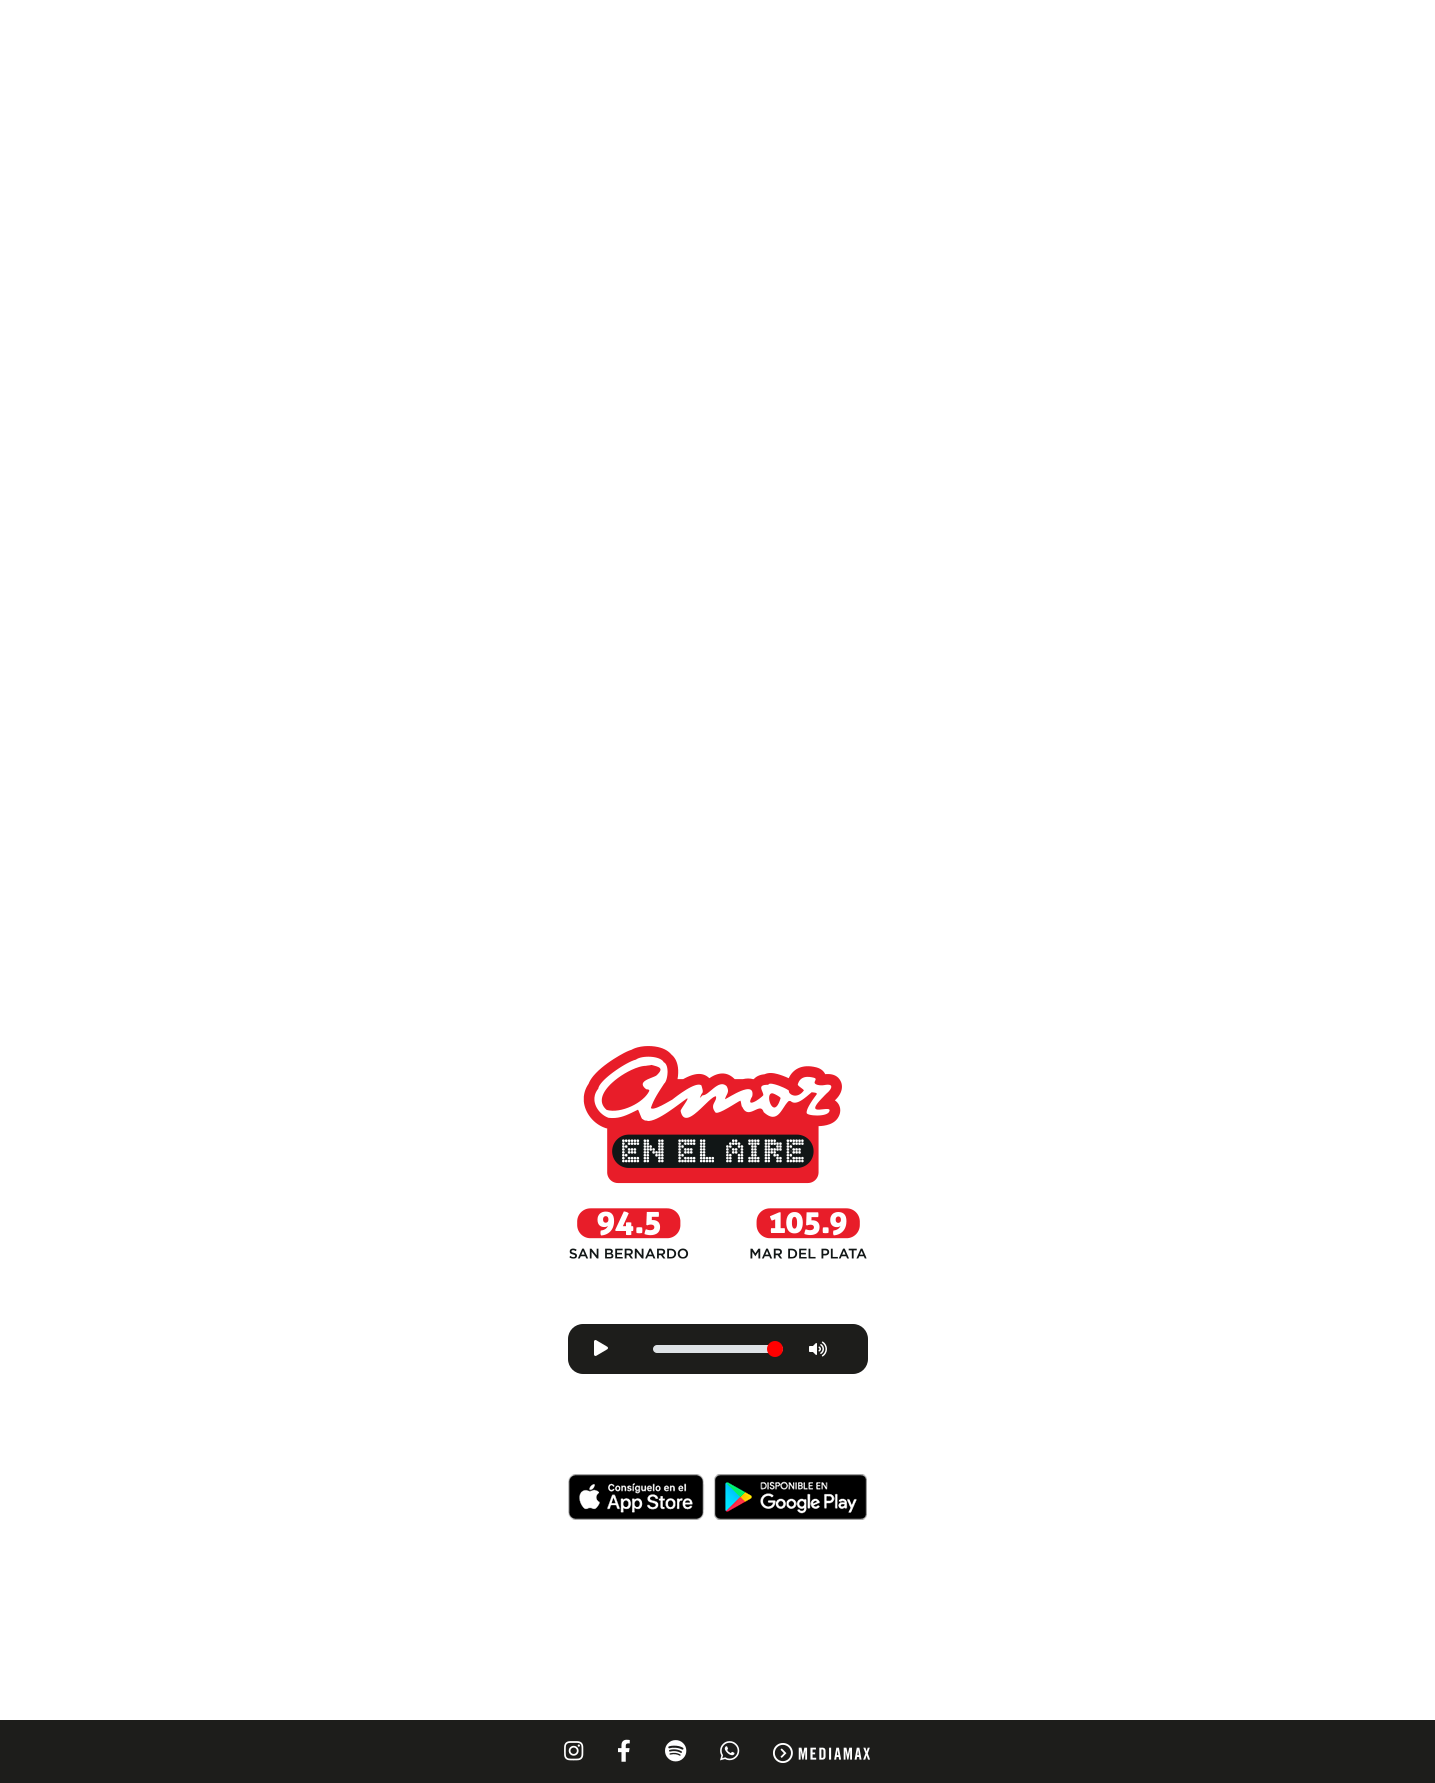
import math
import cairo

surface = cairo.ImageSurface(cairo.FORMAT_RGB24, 1435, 1783)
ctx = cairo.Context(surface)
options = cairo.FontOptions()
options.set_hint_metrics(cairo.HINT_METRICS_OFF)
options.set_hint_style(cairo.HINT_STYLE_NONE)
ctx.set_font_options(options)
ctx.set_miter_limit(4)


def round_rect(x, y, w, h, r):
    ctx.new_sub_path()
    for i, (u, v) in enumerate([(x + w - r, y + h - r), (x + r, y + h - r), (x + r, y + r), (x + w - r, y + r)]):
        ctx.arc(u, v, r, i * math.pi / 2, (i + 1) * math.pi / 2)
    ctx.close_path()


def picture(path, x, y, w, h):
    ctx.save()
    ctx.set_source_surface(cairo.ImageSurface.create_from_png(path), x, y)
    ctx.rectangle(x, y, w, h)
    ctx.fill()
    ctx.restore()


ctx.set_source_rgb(1, 1, 1)
ctx.paint()
picture("img1.png", 569, 1046, 298, 213)
ctx.set_source_rgb(0.114, 0.114, 0.106)
round_rect(568, 1324, 300, 50, 15)
ctx.fill()
picture("img2.png", 594, 1340, 14, 16)
ctx.set_source_rgb(0.871, 0.886, 0.902)
round_rect(653, 1345, 130, 8, 4)
ctx.fill()
ctx.set_source_rgb(1, 0, 0)
ctx.arc(775, 1349, 8, 0, 2 * math.pi)
ctx.fill()
picture("img3.png", 809, 1341, 18, 16)
picture("img4.png", 568, 1474, 299, 46)
ctx.set_source_rgb(0.114, 0.114, 0.106)
ctx.rectangle(0, 1720, 1435, 63)
ctx.fill()
picture("img5.png", 564, 1741, 20, 20)
picture("img6.png", 618, 1739, 12, 23)
picture("img7.png", 665, 1740, 22, 22)
picture("img8.png", 720, 1741, 20, 20)
picture("img9.png", 773, 1743, 97, 20)
surface.write_to_png("page.png")
